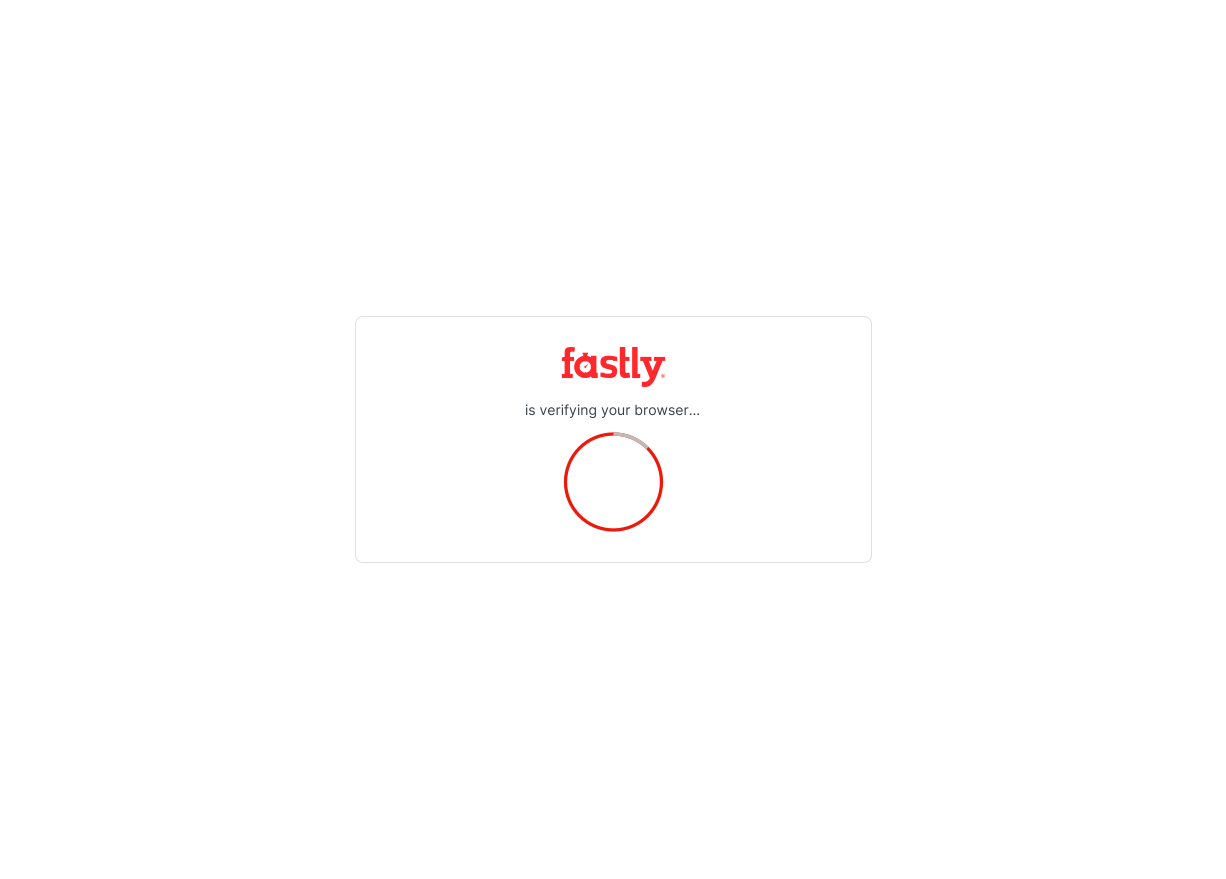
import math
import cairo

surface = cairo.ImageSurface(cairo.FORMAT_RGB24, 1226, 879)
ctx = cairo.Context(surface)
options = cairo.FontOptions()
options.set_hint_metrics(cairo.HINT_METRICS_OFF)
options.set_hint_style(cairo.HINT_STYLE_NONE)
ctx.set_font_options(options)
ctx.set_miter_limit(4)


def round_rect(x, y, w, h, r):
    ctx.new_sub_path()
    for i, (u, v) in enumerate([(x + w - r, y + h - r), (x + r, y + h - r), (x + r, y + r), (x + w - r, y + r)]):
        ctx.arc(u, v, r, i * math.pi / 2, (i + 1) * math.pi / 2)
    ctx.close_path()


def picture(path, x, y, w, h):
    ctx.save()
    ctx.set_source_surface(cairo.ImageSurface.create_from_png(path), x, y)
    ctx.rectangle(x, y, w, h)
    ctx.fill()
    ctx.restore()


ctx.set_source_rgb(1, 1, 1)
ctx.paint()
round_rect(355.5, 316.5, 516, 246, 7.5)
ctx.set_source_rgb(0.863, 0.878, 0.894)
ctx.set_line_width(1)
ctx.stroke()
picture("img1.png", 561, 347, 105, 40)
ctx.select_font_face("Inter")
ctx.set_font_size(14)
ctx.set_source_rgb(0.227, 0.259, 0.29)
ctx.move_to(525, 415)
ctx.show_text("is verifying your browser...")
ctx.new_path()
ctx.move_to(565.5, 482)
ctx.curve_to(565.5, 455.5, 587, 434, 613.5, 434)
ctx.curve_to(640, 434, 661.5, 455.5, 661.5, 482)
ctx.curve_to(661.5, 508.5, 640, 530, 613.5, 530)
ctx.curve_to(587, 530, 565.5, 508.5, 565.5, 482)
ctx.close_path()
ctx.set_source_rgb(0.922, 0.102, 0.047)
ctx.set_line_width(3.3)
ctx.stroke()
ctx.new_path()
ctx.move_to(647.5, 448)
ctx.curve_to(638.5, 439, 626, 434, 613.5, 434)
ctx.set_source_rgb(0.761, 0.729, 0.71)
ctx.stroke()
surface.write_to_png("page.png")
